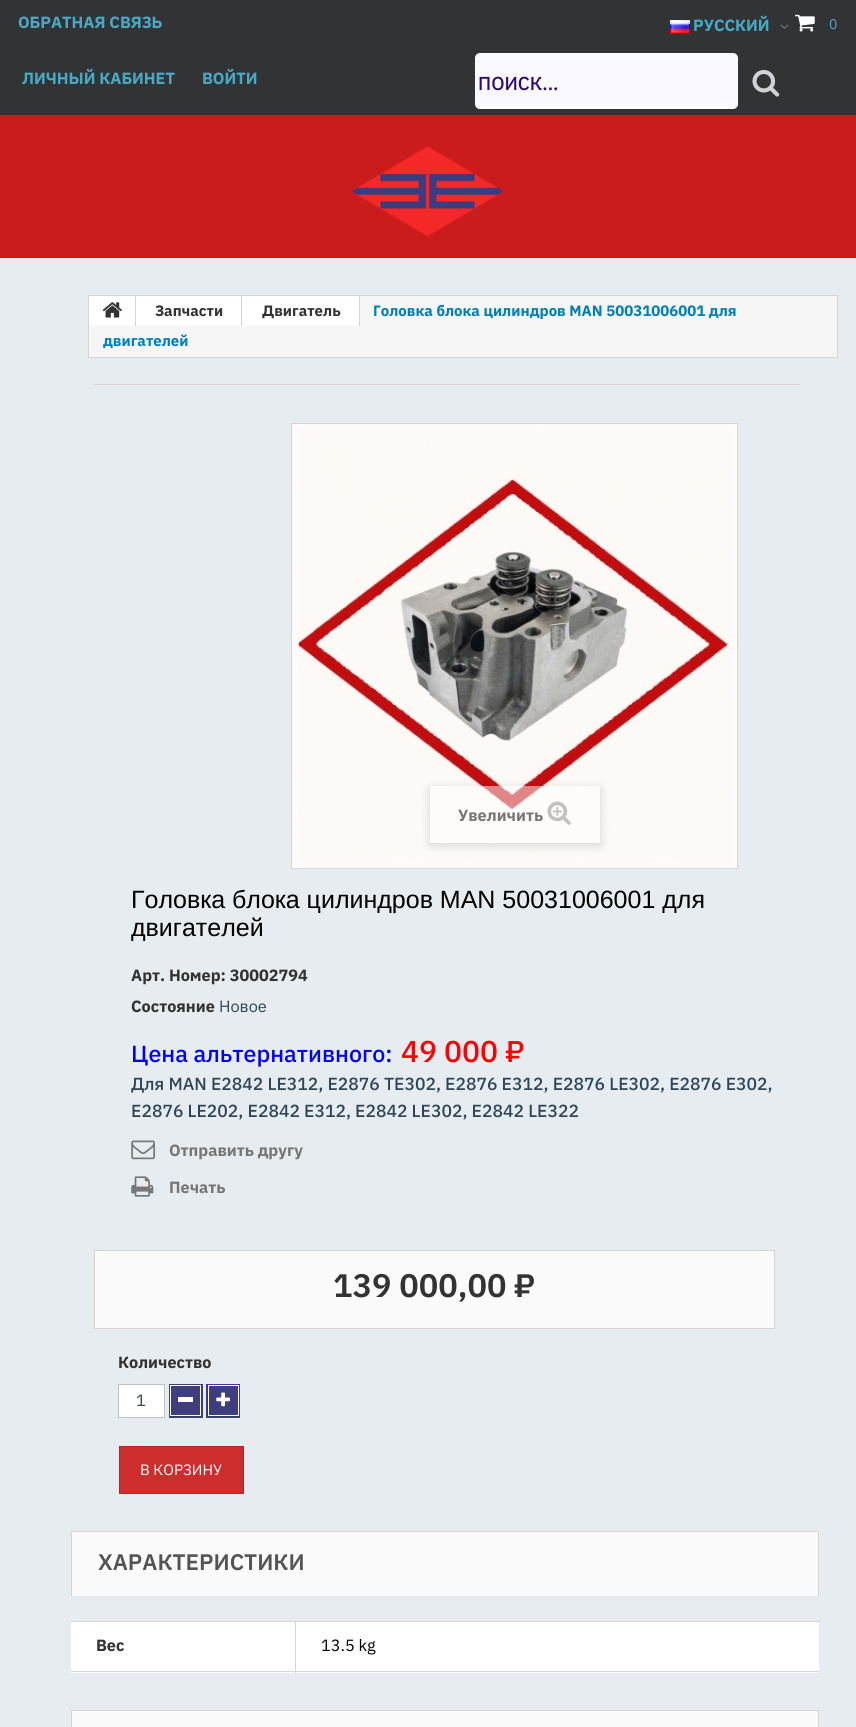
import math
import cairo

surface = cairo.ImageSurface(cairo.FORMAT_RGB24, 856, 1727)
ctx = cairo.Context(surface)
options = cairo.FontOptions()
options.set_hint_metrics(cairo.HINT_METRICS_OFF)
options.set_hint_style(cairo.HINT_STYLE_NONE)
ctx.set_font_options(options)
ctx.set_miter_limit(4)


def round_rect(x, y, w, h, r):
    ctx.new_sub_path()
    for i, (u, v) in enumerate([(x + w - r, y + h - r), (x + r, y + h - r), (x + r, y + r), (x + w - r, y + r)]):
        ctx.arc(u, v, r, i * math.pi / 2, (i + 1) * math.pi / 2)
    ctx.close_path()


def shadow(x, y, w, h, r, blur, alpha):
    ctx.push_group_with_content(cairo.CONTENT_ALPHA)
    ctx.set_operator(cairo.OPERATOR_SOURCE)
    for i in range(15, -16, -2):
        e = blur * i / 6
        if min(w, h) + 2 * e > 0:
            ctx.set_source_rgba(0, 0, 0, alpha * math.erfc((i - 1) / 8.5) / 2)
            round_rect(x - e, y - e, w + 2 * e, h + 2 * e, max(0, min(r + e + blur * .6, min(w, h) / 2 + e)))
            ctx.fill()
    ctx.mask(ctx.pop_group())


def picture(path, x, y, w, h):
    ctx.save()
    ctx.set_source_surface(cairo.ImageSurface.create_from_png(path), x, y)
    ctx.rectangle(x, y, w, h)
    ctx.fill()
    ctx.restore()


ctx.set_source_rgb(0.902, 0.925, 0.941)
ctx.paint()
ctx.set_source_rgb(0.792, 0.11, 0.114)
ctx.rectangle(0, 115, 856, 143)
ctx.fill()
ctx.set_source_rgb(0.196, 0.2, 0.208)
ctx.rectangle(0, 0, 856, 115)
ctx.fill()
ctx.select_font_face("IBM Plex Sans", cairo.FONT_SLANT_NORMAL, cairo.FONT_WEIGHT_BOLD)
ctx.set_font_size(16.25)
ctx.set_source_rgb(0.282, 0.663, 0.773)
ctx.move_to(18, 28)
ctx.show_text("ОБРАТНАЯ СВЯЗЬ")
picture("img1.png", 670, 20, 20, 14)
ctx.move_to(693, 31)
ctx.show_text("РУССКИЙ")
picture("img2.png", 780, 24, 9, 5)
picture("img3.png", 795, 14, 20, 18)
ctx.select_font_face("IBM Plex Sans")
ctx.set_font_size(14)
ctx.move_to(829, 29)
ctx.show_text("0")
ctx.select_font_face("IBM Plex Sans", cairo.FONT_SLANT_NORMAL, cairo.FONT_WEIGHT_BOLD)
ctx.set_font_size(16.25)
ctx.move_to(22, 84)
ctx.show_text("ЛИЧНЫЙ КАБИНЕТ")
ctx.move_to(202, 84)
ctx.show_text("ВОЙТИ")
ctx.set_source_rgb(0.976, 0.976, 1)
round_rect(475, 53, 263, 56, 5)
ctx.fill()
ctx.set_source_rgb(1, 1, 1)
ctx.rectangle(478, 105, 257, 4)
ctx.fill()
ctx.select_font_face("IBM Plex Sans Medium")
ctx.set_font_size(18.75)
ctx.set_source_rgb(0.18, 0.039, 0.435)
ctx.move_to(478, 90)
ctx.show_text("ПОИСК...")
picture("img4.png", 752, 69, 28, 28)
picture("img5.png", 351, 146, 153, 91)
ctx.set_source_rgb(0.961, 0.961, 0.961)
ctx.rectangle(88.5, 295.5, 749, 62)
ctx.fill_preserve()
ctx.set_source_rgb(0.839, 0.831, 0.831)
ctx.set_line_width(1)
ctx.stroke()
ctx.set_source_rgb(1, 1, 1)
ctx.rectangle(89, 296, 46, 30)
ctx.fill()
ctx.set_source_rgb(0.839, 0.831, 0.831)
ctx.rectangle(135, 296, 1, 30)
ctx.fill()
picture("img6.png", 102, 302, 20, 16)
ctx.set_source_rgb(1, 1, 1)
ctx.rectangle(136, 296, 223, 30)
ctx.fill()
ctx.set_source_rgb(0.839, 0.831, 0.831)
ctx.rectangle(241, 296, 1, 30)
ctx.fill()
ctx.select_font_face("IBM Plex Sans", cairo.FONT_SLANT_NORMAL, cairo.FONT_WEIGHT_BOLD)
ctx.set_font_size(15)
ctx.set_source_rgb(0.2, 0.2, 0.2)
ctx.move_to(155, 316)
ctx.show_text("Запчасти")
ctx.set_source_rgb(0.839, 0.831, 0.831)
ctx.rectangle(359, 296, 1, 30)
ctx.fill()
ctx.set_source_rgb(0.2, 0.2, 0.2)
ctx.move_to(262, 316)
ctx.show_text("Двигатель")
ctx.set_source_rgb(0, 0.498, 0.741)
ctx.move_to(373, 316)
ctx.show_text("Головка блока цилиндров MAN 50031006001 для")
ctx.move_to(103, 346)
ctx.show_text("двигателей")
ctx.set_source_rgb(0.839, 0.831, 0.831)
ctx.rectangle(94, 384, 706, 1)
ctx.fill()
ctx.set_source_rgb(1, 0.984, 0.984)
ctx.rectangle(291.5, 423.5, 446, 445)
ctx.fill_preserve()
ctx.set_source_rgb(0.839, 0.831, 0.831)
ctx.stroke()
picture("img7.png", 298, 430, 432, 431)
ctx.save()
ctx.set_fill_rule(cairo.FILL_RULE_EVEN_ODD)
ctx.new_path()
ctx.move_to(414, 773)
ctx.line_to(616, 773)
ctx.line_to(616, 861)
ctx.line_to(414, 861)
ctx.close_path()
ctx.move_to(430, 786)
ctx.line_to(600, 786)
ctx.line_to(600, 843)
ctx.line_to(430, 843)
ctx.close_path()
ctx.clip()
ctx.set_source_rgb(0, 0, 0)
shadow(430, 789, 170, 56, 0, 5, 0.16)
ctx.restore()
ctx.set_source_rgba(1, 1, 1, 0.5)
ctx.rectangle(430, 786, 170, 57)
ctx.fill()
ctx.set_font_size(16.25)
ctx.set_source_rgb(0.467, 0.467, 0.467)
ctx.move_to(458, 821)
ctx.show_text("Увеличить")
picture("img8.png", 547, 801, 24, 24)
ctx.select_font_face("Liberation Sans")
ctx.set_font_size(25)
ctx.set_source_rgb(0, 0, 0)
ctx.move_to(131, 908)
ctx.show_text("Головка блока цилиндров MAN 50031006001 для")
ctx.move_to(131, 936)
ctx.show_text("двигателей")
ctx.select_font_face("IBM Plex Sans", cairo.FONT_SLANT_NORMAL, cairo.FONT_WEIGHT_BOLD)
ctx.set_font_size(16.25)
ctx.set_source_rgb(0.2, 0.2, 0.2)
ctx.move_to(131, 981)
ctx.show_text("Арт. Номер: 30002794")
ctx.move_to(131, 1012)
ctx.show_text("Состояние")
ctx.select_font_face("IBM Plex Sans")
ctx.set_source_rgb(0.176, 0.271, 0.337)
ctx.move_to(219, 1012)
ctx.show_text("Новое")
ctx.select_font_face("IBM Plex Sans Medium")
ctx.set_font_size(23.25)
ctx.set_source_rgb(0, 0, 1)
ctx.move_to(131, 1062)
ctx.show_text("Цена альтернативного:")
ctx.set_font_size(30)
ctx.set_source_rgb(1, 0, 0)
ctx.move_to(401, 1062)
ctx.show_text("49 000 ₽")
ctx.set_font_size(17.5)
ctx.set_source_rgb(0.176, 0.271, 0.337)
ctx.move_to(131, 1090)
ctx.show_text("Для MAN E2842 LE312, E2876 TE302, E2876 E312, E2876 LE302, E2876 E302,")
ctx.move_to(131, 1117)
ctx.show_text("E2876 LE202, E2842 E312, E2842 LE302, E2842 LE322")
picture("img9.png", 131, 1140, 24, 20)
ctx.select_font_face("IBM Plex Sans", cairo.FONT_SLANT_NORMAL, cairo.FONT_WEIGHT_BOLD)
ctx.set_font_size(16.25)
ctx.set_source_rgb(0.467, 0.467, 0.467)
ctx.move_to(169, 1156)
ctx.show_text("Отправить другу")
picture("img10.png", 131, 1176, 23, 21)
ctx.move_to(169, 1193)
ctx.show_text("Печать")
ctx.set_source_rgb(0.984, 0.984, 0.984)
ctx.rectangle(94.5, 1250.5, 680, 78)
ctx.fill_preserve()
ctx.set_source_rgb(0.839, 0.831, 0.831)
ctx.stroke()
ctx.select_font_face("IBM Plex Sans SemiBold")
ctx.set_font_size(32.5)
ctx.set_source_rgb(0.2, 0.2, 0.2)
ctx.move_to(333, 1297)
ctx.show_text("139 000,00 ₽")
ctx.select_font_face("IBM Plex Sans", cairo.FONT_SLANT_NORMAL, cairo.FONT_WEIGHT_BOLD)
ctx.set_font_size(16.25)
ctx.move_to(118, 1368)
ctx.show_text("Количество")
ctx.set_source_rgb(1, 1, 1)
ctx.rectangle(118.5, 1384.5, 46, 33)
ctx.fill_preserve()
ctx.set_source_rgb(0.741, 0.761, 0.788)
ctx.stroke()
ctx.select_font_face("IBM Plex Sans")
ctx.set_source_rgb(0.176, 0.271, 0.337)
ctx.move_to(136, 1406)
ctx.show_text("1")
ctx.rectangle(169.5, 1384.5, 33, 33)
ctx.fill_preserve()
ctx.set_source_rgb(0.243, 0.243, 0.494)
ctx.stroke()
ctx.rectangle(170.5, 1385.5, 30, 30)
ctx.fill_preserve()
ctx.set_source_rgb(1, 1, 1)
ctx.stroke()
ctx.rectangle(178, 1397, 15, 5)
ctx.fill()
ctx.set_source_rgb(0.176, 0.271, 0.337)
ctx.rectangle(206.5, 1384.5, 33, 33)
ctx.fill_preserve()
ctx.set_source_rgb(0.243, 0.243, 0.494)
ctx.stroke()
ctx.rectangle(208.5, 1385.5, 30, 30)
ctx.fill_preserve()
ctx.set_source_rgb(1, 1, 1)
ctx.stroke()
picture("img11.png", 216, 1392, 14, 15)
ctx.set_source_rgb(0.804, 0.176, 0.176)
ctx.rectangle(119.5, 1446.5, 124, 47)
ctx.fill_preserve()
ctx.set_source_rgb(0.792, 0.11, 0.114)
ctx.stroke()
ctx.set_font_size(15)
ctx.set_source_rgb(1, 1, 1)
ctx.move_to(140, 1475)
ctx.show_text("В КОРЗИНУ")
ctx.set_source_rgb(0.984, 0.984, 0.984)
ctx.rectangle(72, 1532, 746, 64)
ctx.fill()
ctx.set_source_rgb(0.839, 0.831, 0.831)
ctx.rectangle(71, 1531, 748, 1)
ctx.fill()
ctx.rectangle(818, 1531, 1, 65)
ctx.fill()
ctx.rectangle(71, 1531, 1, 65)
ctx.fill()
ctx.select_font_face("IBM Plex Sans SemiBold")
ctx.set_font_size(22.5)
ctx.set_source_rgb(0.333, 0.329, 0.329)
ctx.move_to(98, 1570)
ctx.show_text("ХАРАКТЕРИСТИКИ")
ctx.set_source_rgb(1, 1, 1)
ctx.rectangle(71, 1622, 748, 51)
ctx.fill()
ctx.set_source_rgb(0.839, 0.831, 0.831)
ctx.rectangle(71, 1671, 748, 1)
ctx.fill()
ctx.rectangle(71, 1621, 749, 1)
ctx.fill()
ctx.rectangle(295, 1621, 1, 52)
ctx.fill()
ctx.select_font_face("IBM Plex Sans", cairo.FONT_SLANT_NORMAL, cairo.FONT_WEIGHT_BOLD)
ctx.set_font_size(16.25)
ctx.set_source_rgb(0.2, 0.2, 0.2)
ctx.move_to(96, 1651)
ctx.show_text("Вес")
ctx.select_font_face("IBM Plex Sans")
ctx.set_source_rgb(0, 0, 0)
ctx.move_to(321, 1651)
ctx.show_text("13.5 kg")
ctx.set_source_rgb(0.984, 0.984, 0.984)
ctx.rectangle(72, 1711, 746, 16)
ctx.fill()
ctx.set_source_rgb(0.839, 0.831, 0.831)
ctx.rectangle(71, 1710, 748, 1)
ctx.fill()
ctx.rectangle(818, 1710, 1, 17)
ctx.fill()
ctx.rectangle(71, 1710, 1, 17)
ctx.fill()
surface.write_to_png("page.png")
